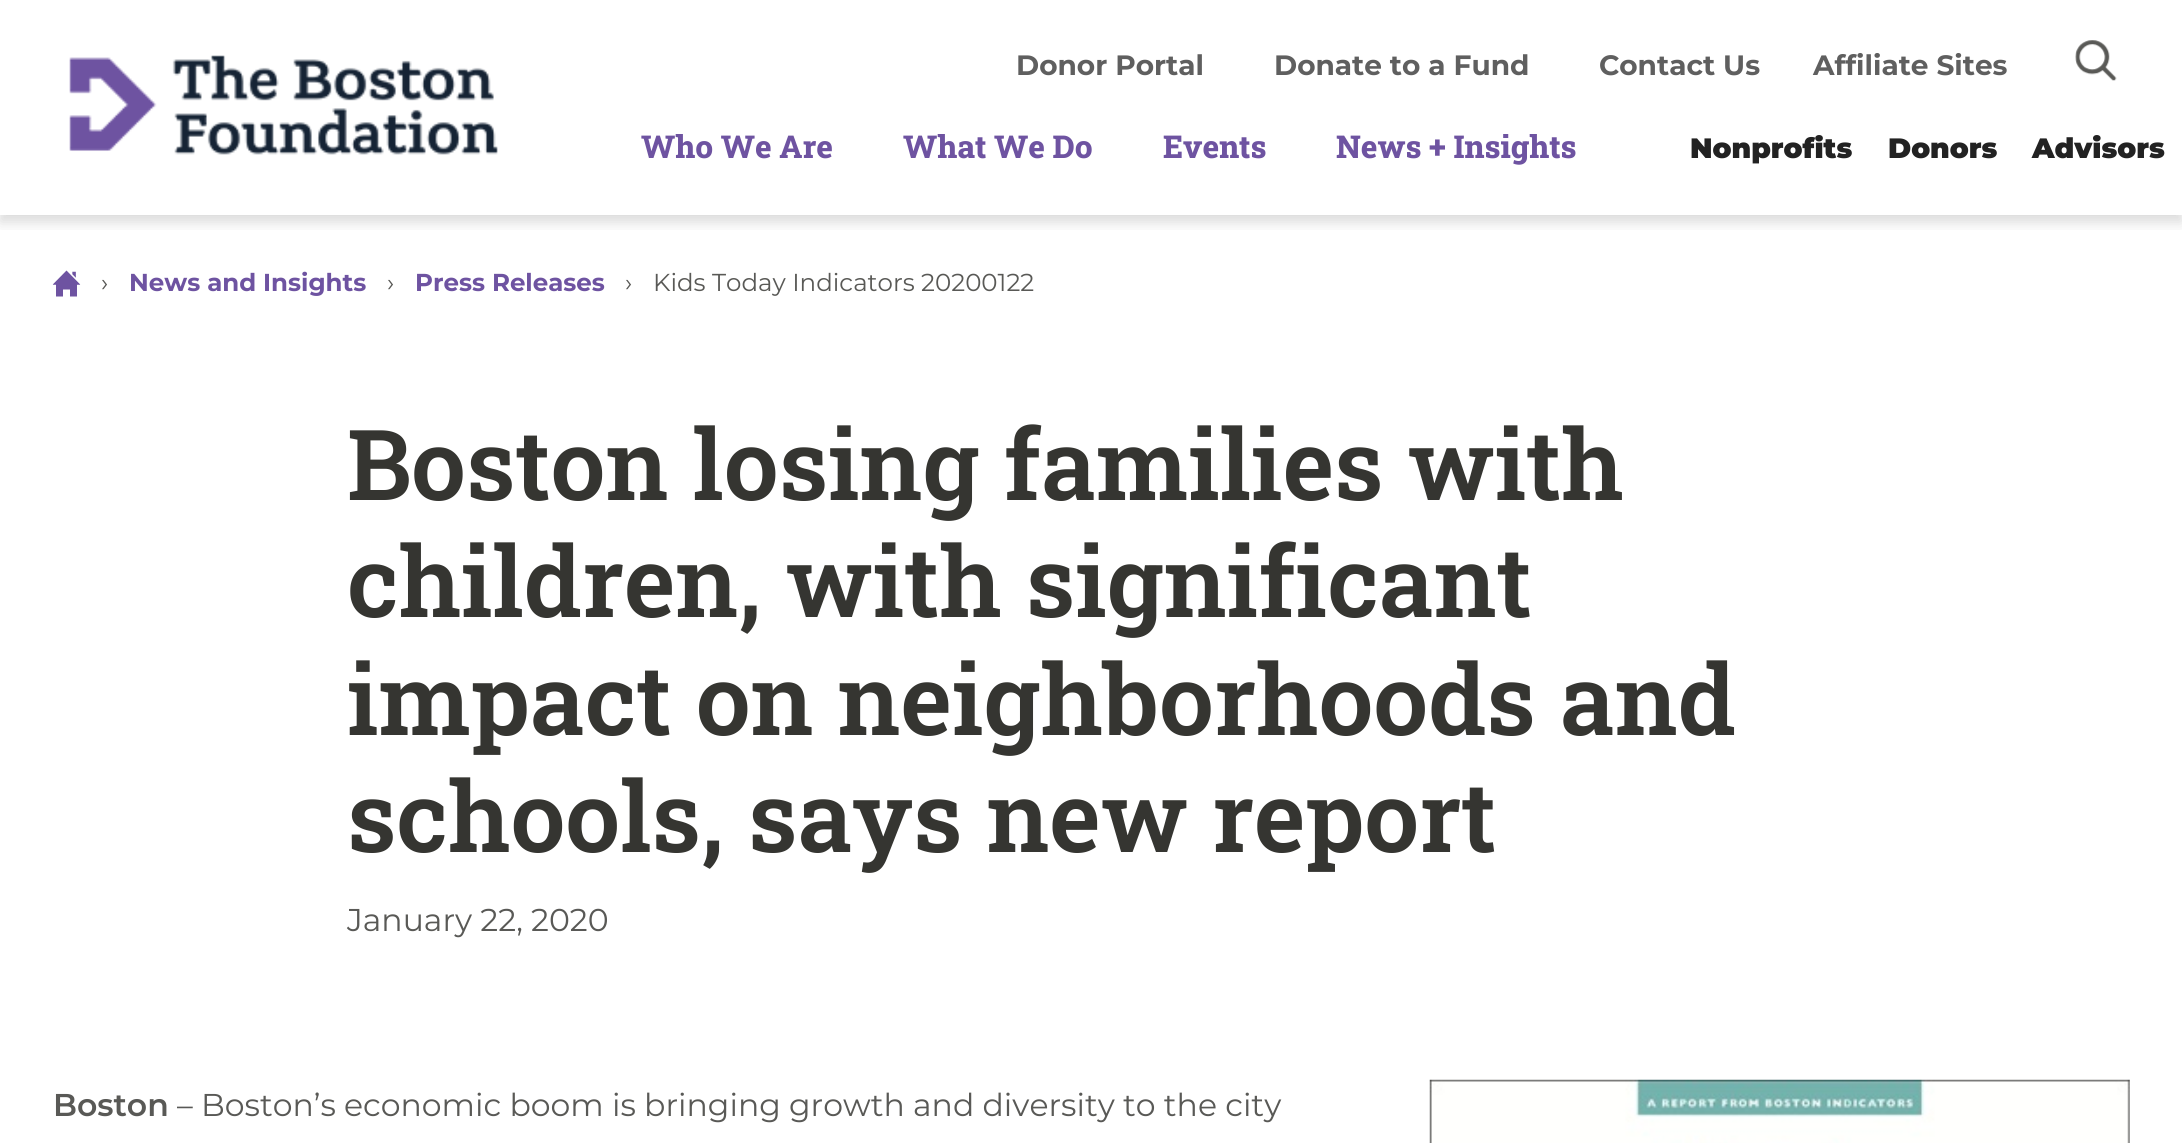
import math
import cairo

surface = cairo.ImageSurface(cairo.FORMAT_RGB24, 2182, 1143)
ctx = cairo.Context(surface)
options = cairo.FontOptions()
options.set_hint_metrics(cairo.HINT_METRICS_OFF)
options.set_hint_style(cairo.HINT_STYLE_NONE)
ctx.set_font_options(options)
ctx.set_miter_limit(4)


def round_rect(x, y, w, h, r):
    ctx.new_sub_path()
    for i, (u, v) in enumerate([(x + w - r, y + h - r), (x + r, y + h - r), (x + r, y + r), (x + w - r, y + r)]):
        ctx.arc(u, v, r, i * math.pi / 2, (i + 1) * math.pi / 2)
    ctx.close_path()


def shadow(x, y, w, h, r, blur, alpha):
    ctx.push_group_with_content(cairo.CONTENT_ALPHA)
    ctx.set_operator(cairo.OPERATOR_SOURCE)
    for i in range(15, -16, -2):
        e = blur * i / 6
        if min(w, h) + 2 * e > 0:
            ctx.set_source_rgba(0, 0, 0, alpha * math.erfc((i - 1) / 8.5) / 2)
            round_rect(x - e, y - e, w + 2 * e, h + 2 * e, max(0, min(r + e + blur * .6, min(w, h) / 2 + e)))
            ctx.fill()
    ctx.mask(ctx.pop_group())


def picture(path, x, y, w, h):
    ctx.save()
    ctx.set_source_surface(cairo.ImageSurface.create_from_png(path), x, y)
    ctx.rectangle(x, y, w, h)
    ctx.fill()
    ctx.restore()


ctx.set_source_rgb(1, 1, 1)
ctx.paint()
ctx.save()
ctx.rectangle(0, 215, 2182, 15)
ctx.clip()
ctx.set_source_rgb(0, 0, 0)
shadow(0, 7, 2182, 215, 0, 7, 0.15)
ctx.restore()
picture("img1.png", 69, 55, 429, 100)
ctx.select_font_face("Montserrat", cairo.FONT_SLANT_NORMAL, cairo.FONT_WEIGHT_BOLD)
ctx.set_font_size(28)
ctx.set_source_rgb(0.373, 0.373, 0.373)
ctx.move_to(1016, 75)
ctx.show_text("Donor Portal")
ctx.move_to(1274, 75)
ctx.show_text("Donate to a Fund")
ctx.move_to(1599, 75)
ctx.show_text("Contact Us")
ctx.move_to(1813, 75)
ctx.show_text("Affiliate Sites")
picture("img2.png", 2075, 40, 42, 41)
ctx.select_font_face("Roboto Slab ExtraBold")
ctx.set_font_size(31.5)
ctx.set_source_rgb(0.431, 0.325, 0.631)
ctx.move_to(641, 158)
ctx.show_text("Who We Are")
ctx.move_to(903, 158)
ctx.show_text("What We Do")
ctx.move_to(1163, 158)
ctx.show_text("Events")
ctx.move_to(1336, 158)
ctx.show_text("News + Insights")
ctx.select_font_face("Montserrat Black")
ctx.set_font_size(28)
ctx.set_source_rgb(0.133, 0.133, 0.133)
ctx.move_to(1690, 158)
ctx.show_text("Nonprofits")
ctx.move_to(1888, 158)
ctx.show_text("Donors")
ctx.move_to(2032, 158)
ctx.show_text("Advisors")
picture("img3.png", 52, 270, 29, 27)
ctx.select_font_face("Montserrat")
ctx.set_font_size(24.5)
ctx.set_source_rgb(0.349, 0.349, 0.337)
ctx.move_to(101, 291)
ctx.show_text("›")
ctx.select_font_face("Montserrat", cairo.FONT_SLANT_NORMAL, cairo.FONT_WEIGHT_BOLD)
ctx.set_source_rgb(0.431, 0.325, 0.631)
ctx.move_to(129, 291)
ctx.show_text("News and Insights")
ctx.select_font_face("Montserrat")
ctx.set_source_rgb(0.349, 0.349, 0.337)
ctx.move_to(387, 291)
ctx.show_text("›")
ctx.select_font_face("Montserrat", cairo.FONT_SLANT_NORMAL, cairo.FONT_WEIGHT_BOLD)
ctx.set_source_rgb(0.431, 0.325, 0.631)
ctx.move_to(415, 291)
ctx.show_text("Press Releases")
ctx.select_font_face("Montserrat")
ctx.set_source_rgb(0.349, 0.349, 0.337)
ctx.move_to(625, 291)
ctx.show_text("›")
ctx.move_to(653, 291)
ctx.show_text("Kids Today Indicators 20200122")
ctx.select_font_face("Roboto Slab SemiBold")
ctx.set_font_size(98)
ctx.set_source_rgb(0.208, 0.208, 0.192)
ctx.move_to(347, 500)
ctx.show_text("Boston losing families with")
ctx.move_to(347, 617)
ctx.show_text("children, with significant")
ctx.move_to(347, 735)
ctx.show_text("impact on neighborhoods and")
ctx.move_to(347, 852)
ctx.show_text("schools, says new report")
ctx.select_font_face("Montserrat")
ctx.set_font_size(31.5)
ctx.set_source_rgb(0.349, 0.349, 0.337)
ctx.move_to(347, 931)
ctx.show_text("January 22, 2020")
ctx.select_font_face("Montserrat SemiBold")
ctx.move_to(53, 1116)
ctx.show_text("Boston")
ctx.select_font_face("Montserrat")
ctx.move_to(177, 1116)
ctx.show_text("– Boston’s economic boom is bringing growth and diversity to the city")
picture("img4.png", 1429, 1079, 701, 64)
surface.write_to_png("page.png")
